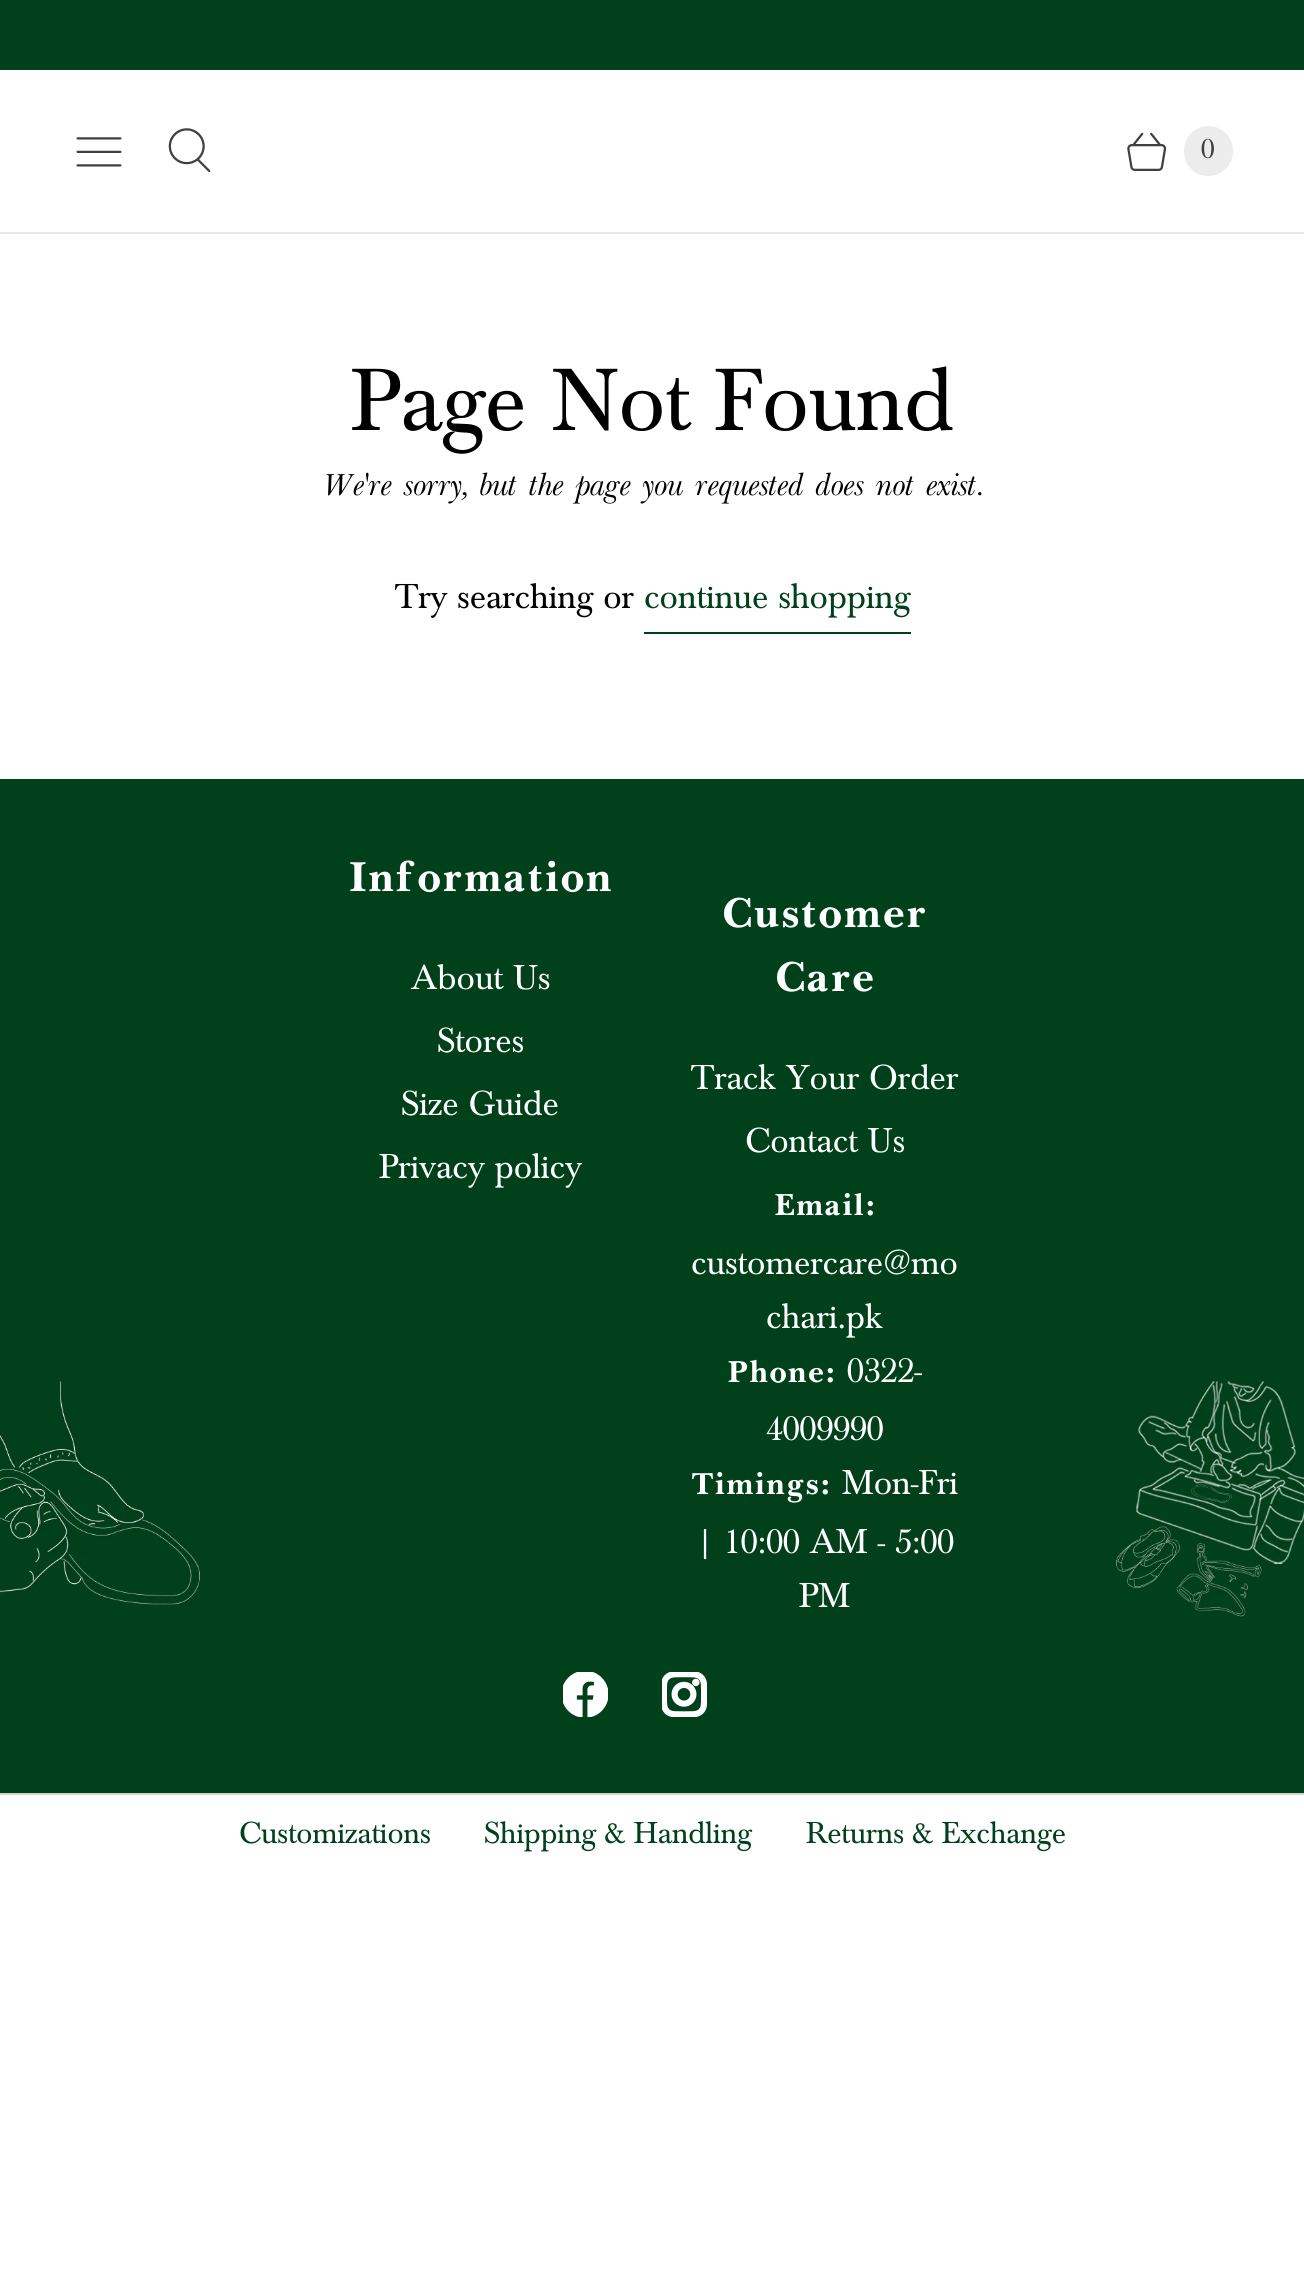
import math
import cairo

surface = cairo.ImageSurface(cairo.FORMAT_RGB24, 1304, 2276)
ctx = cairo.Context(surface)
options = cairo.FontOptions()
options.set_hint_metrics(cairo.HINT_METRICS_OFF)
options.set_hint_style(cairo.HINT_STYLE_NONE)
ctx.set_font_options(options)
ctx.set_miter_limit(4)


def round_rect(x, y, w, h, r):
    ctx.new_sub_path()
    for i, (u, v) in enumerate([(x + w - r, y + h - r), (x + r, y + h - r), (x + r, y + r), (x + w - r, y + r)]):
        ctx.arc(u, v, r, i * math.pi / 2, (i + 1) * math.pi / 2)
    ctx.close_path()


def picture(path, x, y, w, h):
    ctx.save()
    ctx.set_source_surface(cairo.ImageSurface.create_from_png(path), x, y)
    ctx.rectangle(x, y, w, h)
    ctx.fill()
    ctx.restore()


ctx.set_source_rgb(1, 1, 1)
ctx.paint()
ctx.set_source_rgb(0, 0.251, 0.102)
ctx.rectangle(0, 0, 1304, 70)
ctx.fill()
ctx.set_source_rgb(0.906, 0.906, 0.906)
ctx.rectangle(0, 232, 1304, 2)
ctx.fill()
picture("img1.png", 76, 137, 46, 30)
picture("img2.png", 168, 128, 43, 45)
picture("img3.png", 1127, 132, 40, 39)
ctx.set_source_rgb(0.925, 0.925, 0.925)
round_rect(1184, 126, 49, 50, 24.5)
ctx.fill()
ctx.select_font_face("Baskerville")
ctx.set_font_size(29)
ctx.set_source_rgb(0.251, 0.251, 0.251)
ctx.move_to(1201, 158)
ctx.show_text("0")
ctx.set_font_size(91.75)
ctx.set_source_rgb(0, 0, 0)
ctx.move_to(351, 430)
ctx.show_text("Page Not Found")
ctx.select_font_face("Baskerville Light", cairo.FONT_SLANT_ITALIC)
ctx.set_font_size(36)
ctx.move_to(323, 495)
ctx.show_text("We're sorry, but the page you requested does not exist.")
ctx.select_font_face("Baskerville")
ctx.move_to(395, 608)
ctx.show_text("Try searching or")
ctx.set_source_rgb(0, 0.251, 0.102)
ctx.move_to(644, 608)
ctx.show_text("continue shopping")
ctx.rectangle(644, 632, 267, 2)
ctx.fill()
ctx.rectangle(0, 779, 1304, 1014)
ctx.fill()
ctx.select_font_face("Baskerville", cairo.FONT_SLANT_NORMAL, cairo.FONT_WEIGHT_BOLD)
ctx.set_font_size(49.5)
ctx.set_source_rgb(1, 1, 1)
ctx.move_to(348, 891)
ctx.show_text("Information")
ctx.select_font_face("Baskerville")
ctx.set_font_size(36)
ctx.move_to(411, 989)
ctx.show_text("About Us")
ctx.move_to(437, 1052)
ctx.show_text("Stores")
ctx.move_to(401, 1115)
ctx.show_text("Size Guide")
ctx.move_to(379, 1178)
ctx.show_text("Privacy policy")
ctx.select_font_face("Baskerville", cairo.FONT_SLANT_NORMAL, cairo.FONT_WEIGHT_BOLD)
ctx.set_font_size(49.5)
ctx.move_to(722, 927)
ctx.show_text("Customer")
ctx.move_to(775, 991)
ctx.show_text("Care")
ctx.select_font_face("Baskerville")
ctx.set_font_size(36)
ctx.move_to(691, 1089)
ctx.show_text("Track Your Order")
ctx.move_to(745, 1152)
ctx.show_text("Contact Us")
ctx.select_font_face("Baskerville", cairo.FONT_SLANT_NORMAL, cairo.FONT_WEIGHT_BOLD)
ctx.move_to(774, 1215)
ctx.show_text("Email:")
ctx.select_font_face("Baskerville")
ctx.move_to(691, 1274)
ctx.show_text("customercare@mo")
ctx.move_to(766, 1328)
ctx.show_text("chari.pk")
picture("img6.png", 0, 1381, 1304, 238)
ctx.select_font_face("Baskerville", cairo.FONT_SLANT_NORMAL, cairo.FONT_WEIGHT_BOLD)
ctx.move_to(727, 1382)
ctx.show_text("Phone:")
ctx.select_font_face("Baskerville")
ctx.move_to(847, 1382)
ctx.show_text("0322-")
ctx.move_to(766, 1440)
ctx.show_text("4009990")
ctx.select_font_face("Baskerville", cairo.FONT_SLANT_NORMAL, cairo.FONT_WEIGHT_BOLD)
ctx.move_to(691, 1494)
ctx.show_text("Timings:")
ctx.select_font_face("Baskerville")
ctx.move_to(842, 1494)
ctx.show_text("Mon-Fri")
ctx.move_to(696, 1553)
ctx.show_text("| 10:00 AM - 5:00")
ctx.move_to(799, 1607)
ctx.show_text("PM")
picture("img4.png", 563, 1672, 45, 45)
picture("img5.png", 662, 1672, 45, 45)
ctx.set_source_rgb(0.839, 0.831, 0.796)
ctx.rectangle(0, 1793, 1304, 2)
ctx.fill()
ctx.set_font_size(31.5)
ctx.set_source_rgb(0, 0.251, 0.102)
ctx.move_to(239, 1843)
ctx.show_text("Customizations")
ctx.move_to(484, 1843)
ctx.show_text("Shipping & Handling")
ctx.move_to(806, 1843)
ctx.show_text("Returns & Exchange")
surface.write_to_png("page.png")
